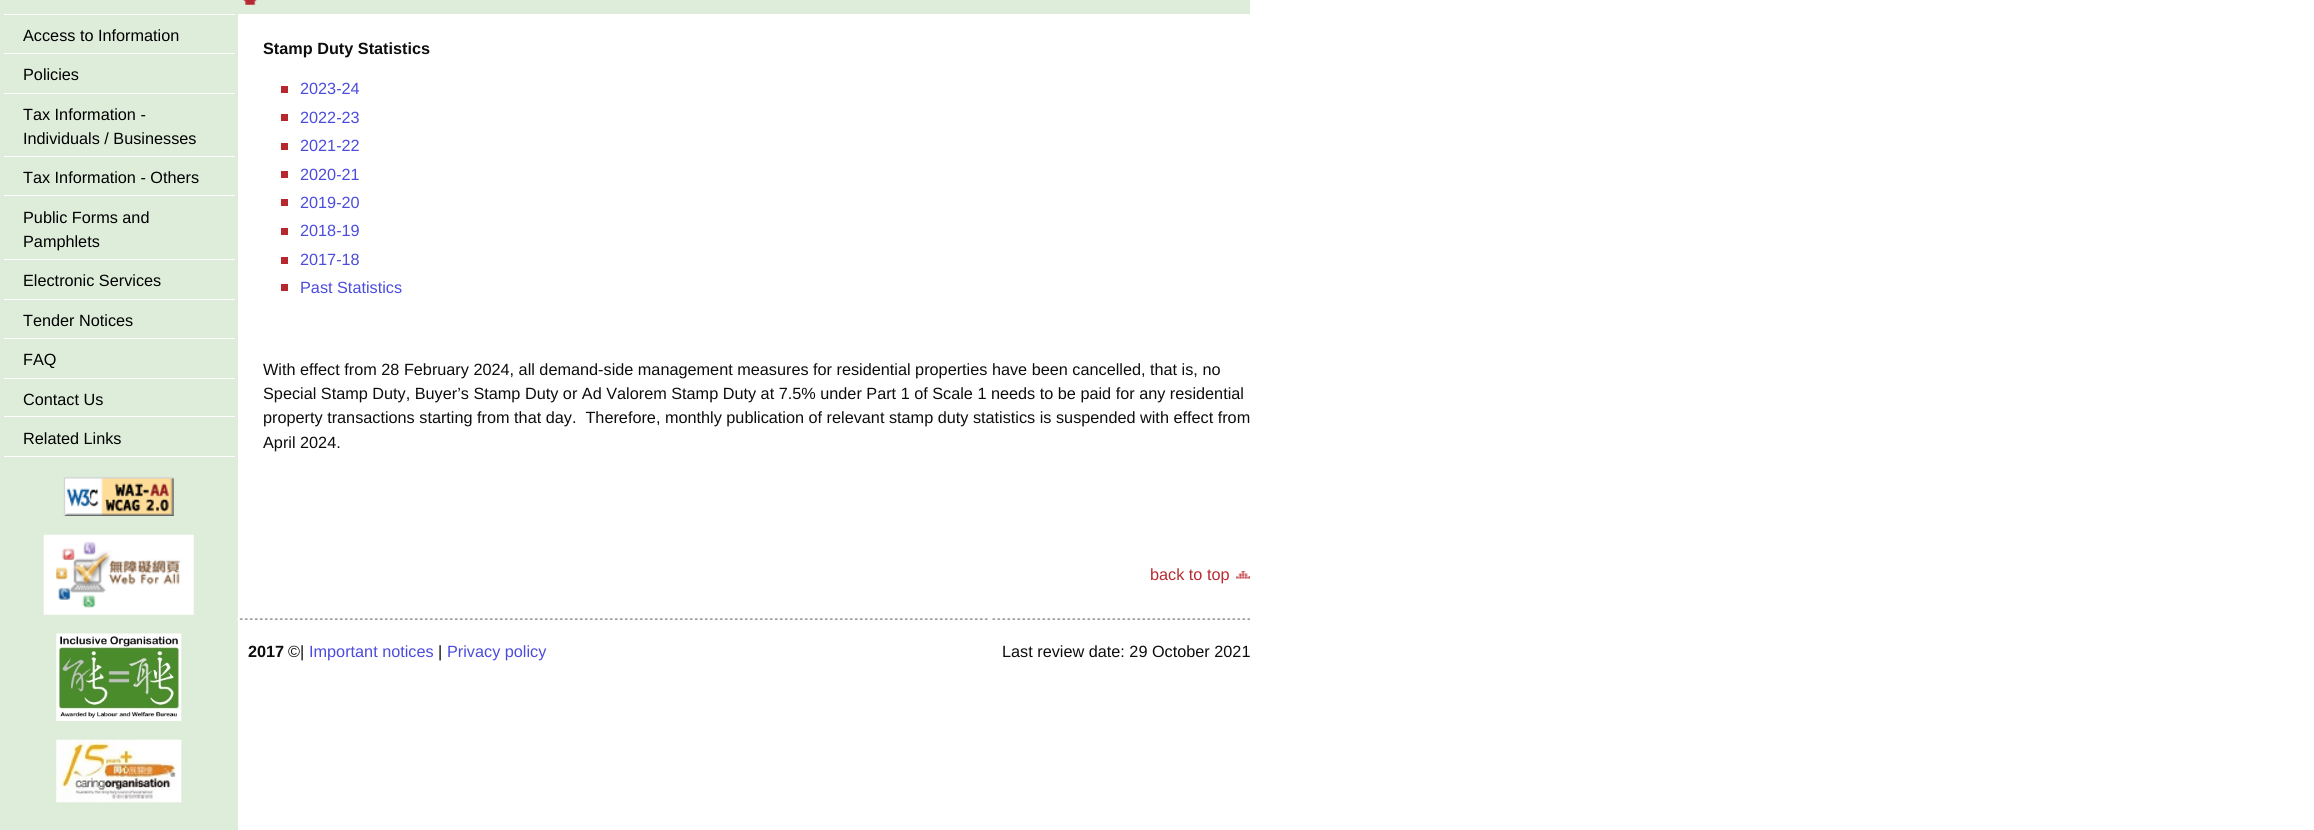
import math
import cairo

surface = cairo.ImageSurface(cairo.FORMAT_RGB24, 2314, 830)
ctx = cairo.Context(surface)
options = cairo.FontOptions()
options.set_hint_metrics(cairo.HINT_METRICS_OFF)
options.set_hint_style(cairo.HINT_STYLE_NONE)
ctx.set_font_options(options)
ctx.set_miter_limit(4)


def picture(path, x, y, w, h):
    ctx.save()
    ctx.set_source_surface(cairo.ImageSurface.create_from_png(path), x, y)
    ctx.rectangle(x, y, w, h)
    ctx.fill()
    ctx.restore()


ctx.set_source_rgb(1, 1, 1)
ctx.paint()
ctx.set_source_rgb(0.867, 0.929, 0.855)
ctx.rectangle(0, 0, 238, 830)
ctx.fill()
ctx.set_source_rgb(1, 1, 1)
ctx.rectangle(4, 14, 231, 1)
ctx.fill()
ctx.rectangle(4, 53, 231, 1)
ctx.fill()
ctx.select_font_face("Liberation Sans")
ctx.set_font_size(16.25)
ctx.set_source_rgb(0, 0, 0)
ctx.move_to(23, 41)
ctx.show_text("Access to Information")
ctx.set_source_rgb(1, 1, 1)
ctx.rectangle(4, 93, 231, 1)
ctx.fill()
ctx.set_source_rgb(0, 0, 0)
ctx.move_to(23, 80)
ctx.show_text("Policies")
ctx.set_source_rgb(1, 1, 1)
ctx.rectangle(4, 156, 231, 1)
ctx.fill()
ctx.set_source_rgb(0, 0, 0)
ctx.move_to(23, 120)
ctx.show_text("Tax Information -")
ctx.move_to(23, 144)
ctx.show_text("Individuals / Businesses")
ctx.set_source_rgb(1, 1, 1)
ctx.rectangle(4, 195, 231, 1)
ctx.fill()
ctx.set_source_rgb(0, 0, 0)
ctx.move_to(23, 183)
ctx.show_text("Tax Information - Others")
ctx.set_source_rgb(1, 1, 1)
ctx.rectangle(4, 259, 231, 1)
ctx.fill()
ctx.set_source_rgb(0, 0, 0)
ctx.move_to(23, 223)
ctx.show_text("Public Forms and")
ctx.move_to(23, 247)
ctx.show_text("Pamphlets")
ctx.set_source_rgb(1, 1, 1)
ctx.rectangle(4, 299, 231, 1)
ctx.fill()
ctx.set_source_rgb(0, 0, 0)
ctx.move_to(23, 286)
ctx.show_text("Electronic Services")
ctx.set_source_rgb(1, 1, 1)
ctx.rectangle(4, 338, 231, 1)
ctx.fill()
ctx.set_source_rgb(0, 0, 0)
ctx.move_to(23, 326)
ctx.show_text("Tender Notices")
ctx.set_source_rgb(1, 1, 1)
ctx.rectangle(4, 378, 231, 1)
ctx.fill()
ctx.set_source_rgb(0, 0, 0)
ctx.move_to(23, 365)
ctx.show_text("FAQ")
ctx.set_source_rgb(1, 1, 1)
ctx.rectangle(4, 416, 231, 1)
ctx.fill()
ctx.set_source_rgb(0, 0, 0)
ctx.move_to(23, 405)
ctx.show_text("Contact Us")
ctx.set_source_rgb(1, 1, 1)
ctx.rectangle(4, 456, 231, 1)
ctx.fill()
ctx.set_source_rgb(0, 0, 0)
ctx.move_to(23, 444)
ctx.show_text("Related Links")
picture("img1.png", 63, 477, 111, 39)
picture("img2.png", 43, 534, 151, 81)
picture("img3.png", 56, 633, 126, 88)
picture("img4.png", 56, 739, 126, 64)
ctx.set_source_rgb(0.867, 0.929, 0.855)
ctx.rectangle(238, 0, 1012, 14)
ctx.fill()
picture("img5.png", 243, 0, 14, 5)
ctx.select_font_face("Liberation Sans", cairo.FONT_SLANT_NORMAL, cairo.FONT_WEIGHT_BOLD)
ctx.set_source_rgb(0.051, 0.051, 0.051)
ctx.move_to(263, 54)
ctx.show_text("Stamp Duty Statistics")
ctx.set_source_rgb(0.71, 0.157, 0.188)
ctx.rectangle(281, 86, 7, 7)
ctx.fill()
ctx.select_font_face("Liberation Sans")
ctx.set_source_rgb(0.294, 0.294, 0.867)
ctx.move_to(300, 94)
ctx.show_text("2023-24")
ctx.set_source_rgb(0.71, 0.157, 0.188)
ctx.rectangle(281, 114, 7, 7)
ctx.fill()
ctx.set_source_rgb(0.294, 0.294, 0.867)
ctx.move_to(300, 123)
ctx.show_text("2022-23")
ctx.set_source_rgb(0.71, 0.157, 0.188)
ctx.rectangle(281, 143, 7, 7)
ctx.fill()
ctx.set_source_rgb(0.294, 0.294, 0.867)
ctx.move_to(300, 151)
ctx.show_text("2021-22")
ctx.set_source_rgb(0.71, 0.157, 0.188)
ctx.rectangle(281, 171, 7, 7)
ctx.fill()
ctx.set_source_rgb(0.294, 0.294, 0.867)
ctx.move_to(300, 180)
ctx.show_text("2020-21")
ctx.set_source_rgb(0.71, 0.157, 0.188)
ctx.rectangle(281, 199, 7, 7)
ctx.fill()
ctx.set_source_rgb(0.294, 0.294, 0.867)
ctx.move_to(300, 208)
ctx.show_text("2019-20")
ctx.set_source_rgb(0.71, 0.157, 0.188)
ctx.rectangle(281, 228, 7, 7)
ctx.fill()
ctx.set_source_rgb(0.294, 0.294, 0.867)
ctx.move_to(300, 236)
ctx.show_text("2018-19")
ctx.set_source_rgb(0.71, 0.157, 0.188)
ctx.rectangle(281, 257, 7, 7)
ctx.fill()
ctx.set_source_rgb(0.294, 0.294, 0.867)
ctx.move_to(300, 265)
ctx.show_text("2017-18")
ctx.set_source_rgb(0.71, 0.157, 0.188)
ctx.rectangle(281, 284, 7, 7)
ctx.fill()
ctx.set_source_rgb(0.294, 0.294, 0.867)
ctx.move_to(300, 293)
ctx.show_text("Past Statistics")
ctx.set_source_rgb(0.051, 0.051, 0.051)
ctx.move_to(263, 375)
ctx.show_text("With effect from 28 February 2024, all demand-side management measures for residential properties have been cancelled, that is, no")
ctx.move_to(263, 399)
ctx.show_text("Special Stamp Duty, Buyer’s Stamp Duty or Ad Valorem Stamp Duty at 7.5% under Part 1 of Scale 1 needs to be paid for any residential")
ctx.move_to(263, 423)
ctx.show_text("property transactions starting from that day.  Therefore, monthly publication of relevant stamp duty statistics is suspended with effect from")
ctx.move_to(263, 448)
ctx.show_text("April 2024.")
ctx.set_source_rgb(0.714, 0.165, 0.188)
ctx.move_to(1150, 580)
ctx.show_text("back to top")
picture("img6.png", 1236, 571, 14, 8)
picture("img7.png", 237, 617, 1013, 4)
ctx.select_font_face("Liberation Sans", cairo.FONT_SLANT_NORMAL, cairo.FONT_WEIGHT_BOLD)
ctx.set_source_rgb(0.051, 0.051, 0.051)
ctx.move_to(248, 657)
ctx.show_text("2017")
ctx.select_font_face("Liberation Sans")
ctx.move_to(288, 657)
ctx.show_text("©|")
ctx.set_source_rgb(0.294, 0.294, 0.867)
ctx.move_to(309, 657)
ctx.show_text("Important notices")
ctx.set_source_rgb(0.051, 0.051, 0.051)
ctx.move_to(438, 657)
ctx.show_text("|")
ctx.set_source_rgb(0.294, 0.294, 0.867)
ctx.move_to(447, 657)
ctx.show_text("Privacy policy")
ctx.set_source_rgb(0.051, 0.051, 0.051)
ctx.move_to(1002, 657)
ctx.show_text("Last review date: 29 October 2021")
surface.write_to_png("page.png")
